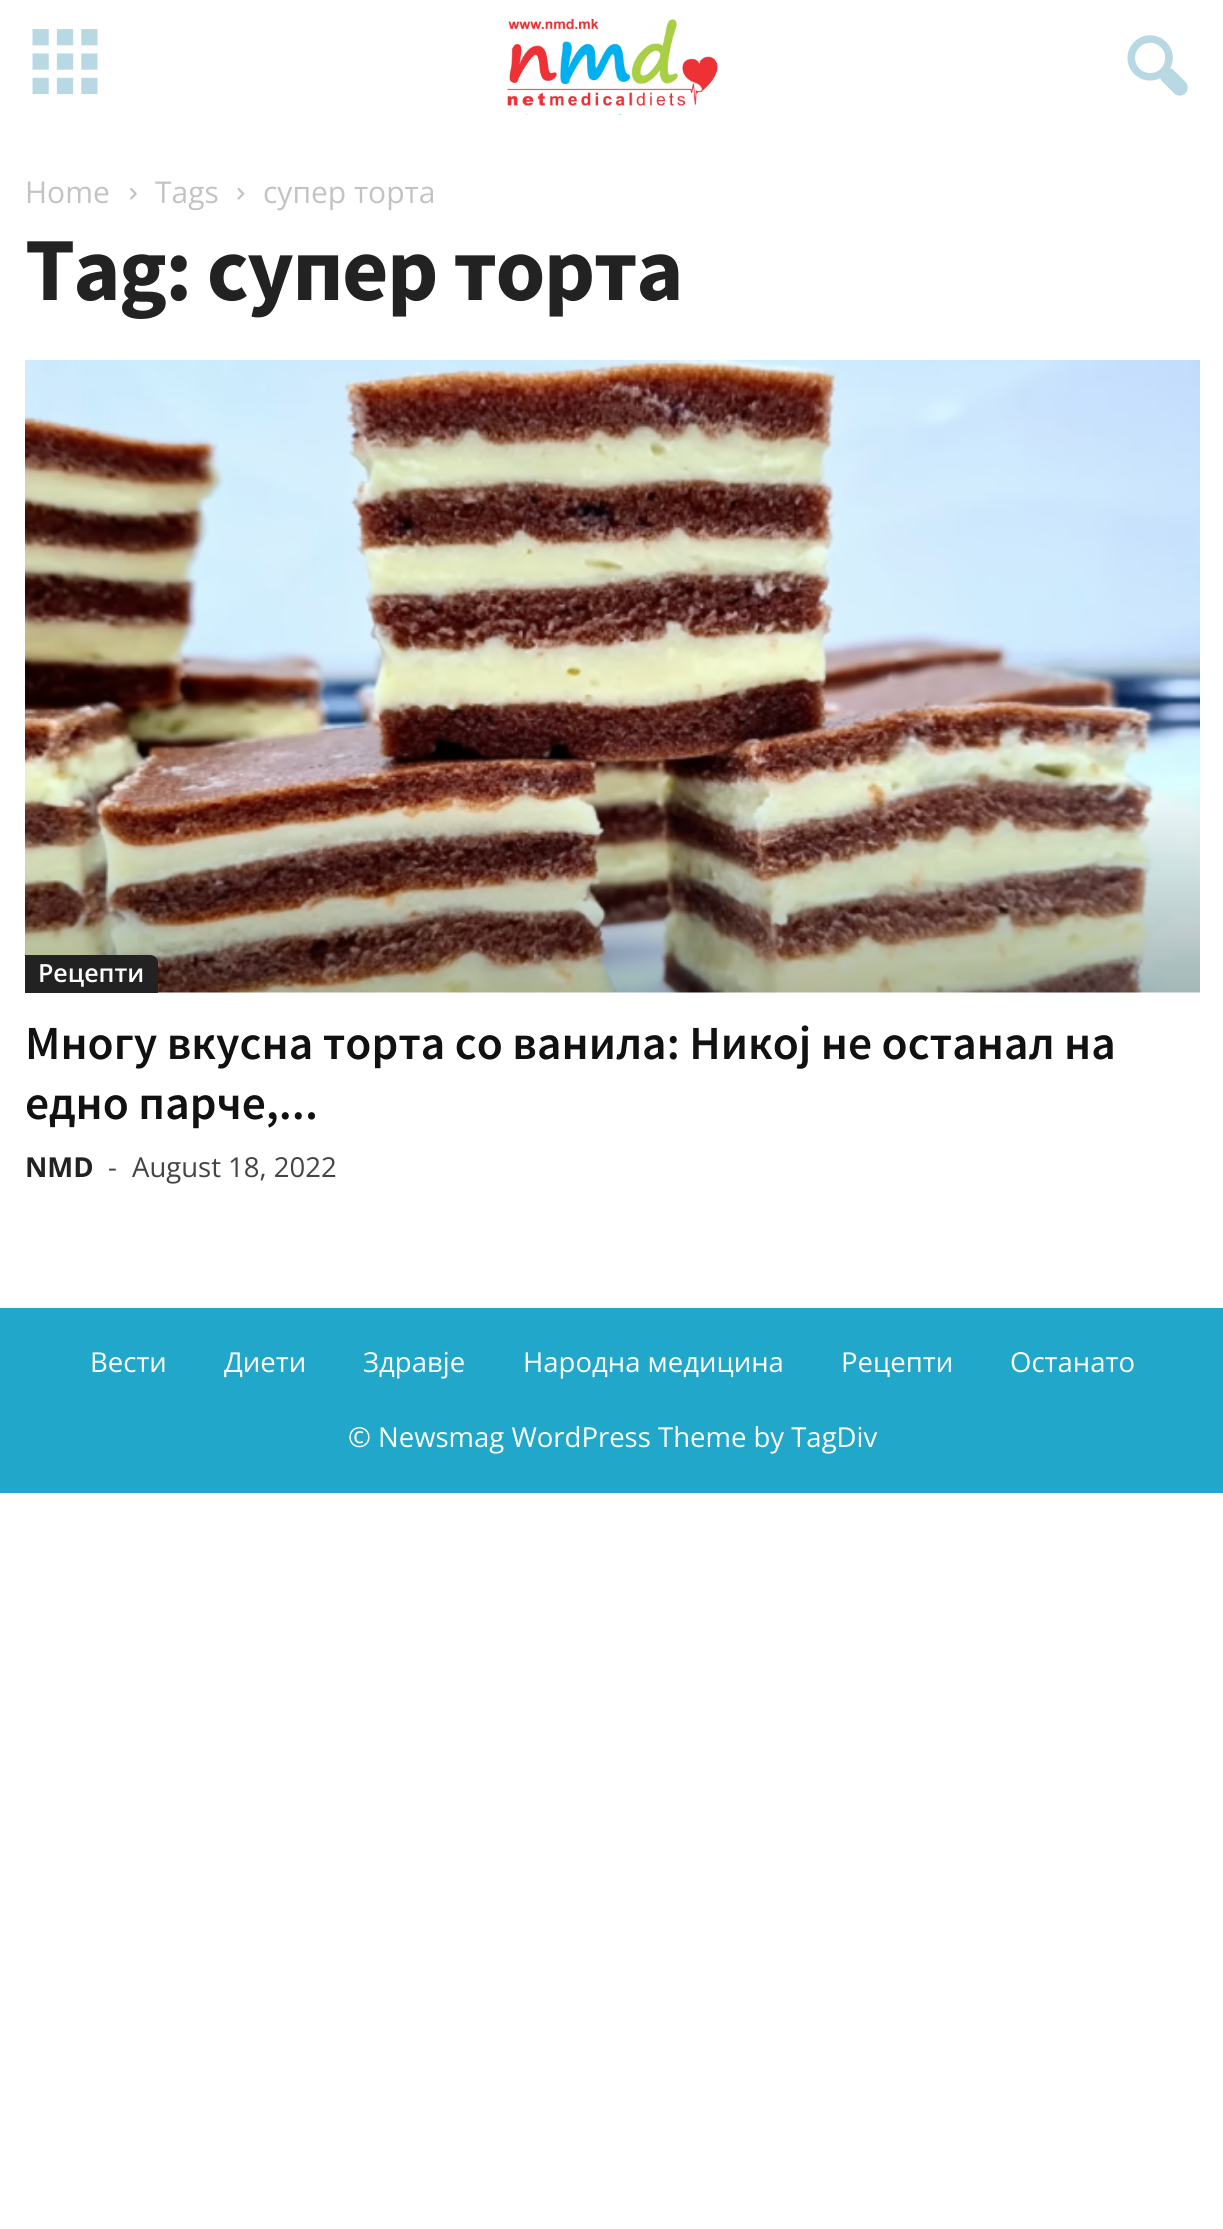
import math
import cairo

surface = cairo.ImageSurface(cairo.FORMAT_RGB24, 1223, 2229)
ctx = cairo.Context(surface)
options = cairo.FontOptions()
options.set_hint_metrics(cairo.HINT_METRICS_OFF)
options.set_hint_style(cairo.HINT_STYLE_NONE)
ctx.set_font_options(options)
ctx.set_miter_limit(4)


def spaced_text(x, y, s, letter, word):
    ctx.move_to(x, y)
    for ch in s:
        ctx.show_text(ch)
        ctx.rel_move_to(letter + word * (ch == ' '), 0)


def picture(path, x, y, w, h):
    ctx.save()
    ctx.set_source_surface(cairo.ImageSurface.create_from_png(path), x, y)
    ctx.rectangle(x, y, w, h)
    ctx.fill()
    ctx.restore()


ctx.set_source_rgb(1, 1, 1)
ctx.paint()
picture("img1.png", 32, 29, 66, 66)
picture("img2.png", 507, 18, 211, 97)
picture("img3.png", 1127, 35, 61, 61)
ctx.select_font_face("Open Sans")
ctx.set_font_size(30)
ctx.set_source_rgb(0.765, 0.765, 0.765)
ctx.move_to(25, 203)
ctx.show_text("Home")
picture("img4.png", 130, 188, 7, 12)
ctx.move_to(155, 203)
ctx.show_text("Tags")
picture("img5.png", 237, 188, 8, 12)
ctx.move_to(263, 203)
ctx.show_text("супер торта")
ctx.select_font_face("Source Sans Pro", cairo.FONT_SLANT_NORMAL, cairo.FONT_WEIGHT_BOLD)
ctx.set_font_size(90)
ctx.set_source_rgb(0.133, 0.133, 0.133)
spaced_text(25, 300, "Tag: супер торта", -1.75, 0)
picture("img6.png", 25, 360, 1175, 633)
ctx.new_path()
ctx.move_to(25, 955)
ctx.line_to(150, 955)
ctx.curve_to(154.5, 955, 158, 958.5, 158, 963)
ctx.line_to(158, 993)
ctx.line_to(25, 993)
ctx.close_path()
ctx.fill()
ctx.select_font_face("Open Sans SemiBold")
ctx.set_font_size(25)
ctx.set_source_rgb(1, 1, 1)
ctx.move_to(38, 982)
ctx.show_text("Рецепти")
ctx.select_font_face("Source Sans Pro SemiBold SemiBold")
ctx.set_font_size(47.5)
ctx.set_source_rgb(0.067, 0.067, 0.067)
ctx.move_to(25, 1059)
ctx.show_text("Многу вкусна торта со ванила: Никој не останал на")
ctx.move_to(25, 1119)
ctx.show_text("едно парче,...")
ctx.select_font_face("Open Sans", cairo.FONT_SLANT_NORMAL, cairo.FONT_WEIGHT_BOLD)
ctx.set_font_size(27.5)
ctx.set_source_rgb(0.133, 0.133, 0.133)
ctx.move_to(25, 1177)
ctx.show_text("NMD")
ctx.select_font_face("Open Sans")
ctx.set_source_rgb(0.267, 0.267, 0.267)
ctx.move_to(108, 1177)
ctx.show_text("-")
ctx.move_to(132, 1177)
ctx.show_text("August 18, 2022")
ctx.set_source_rgb(0.125, 0.655, 0.788)
ctx.rectangle(0, 1308, 1223, 185)
ctx.fill()
ctx.set_source_rgb(1, 1, 1)
ctx.move_to(90, 1372)
ctx.show_text("Вести")
ctx.move_to(224, 1372)
ctx.show_text("Диети")
ctx.move_to(363, 1372)
ctx.show_text("Здравје")
ctx.move_to(523, 1372)
ctx.show_text("Народна медицина")
ctx.move_to(841, 1372)
ctx.show_text("Рецепти")
ctx.move_to(1010, 1372)
ctx.show_text("Останато")
ctx.move_to(348, 1447)
ctx.show_text("© Newsmag WordPress Theme by TagDiv")
surface.write_to_png("page.png")
